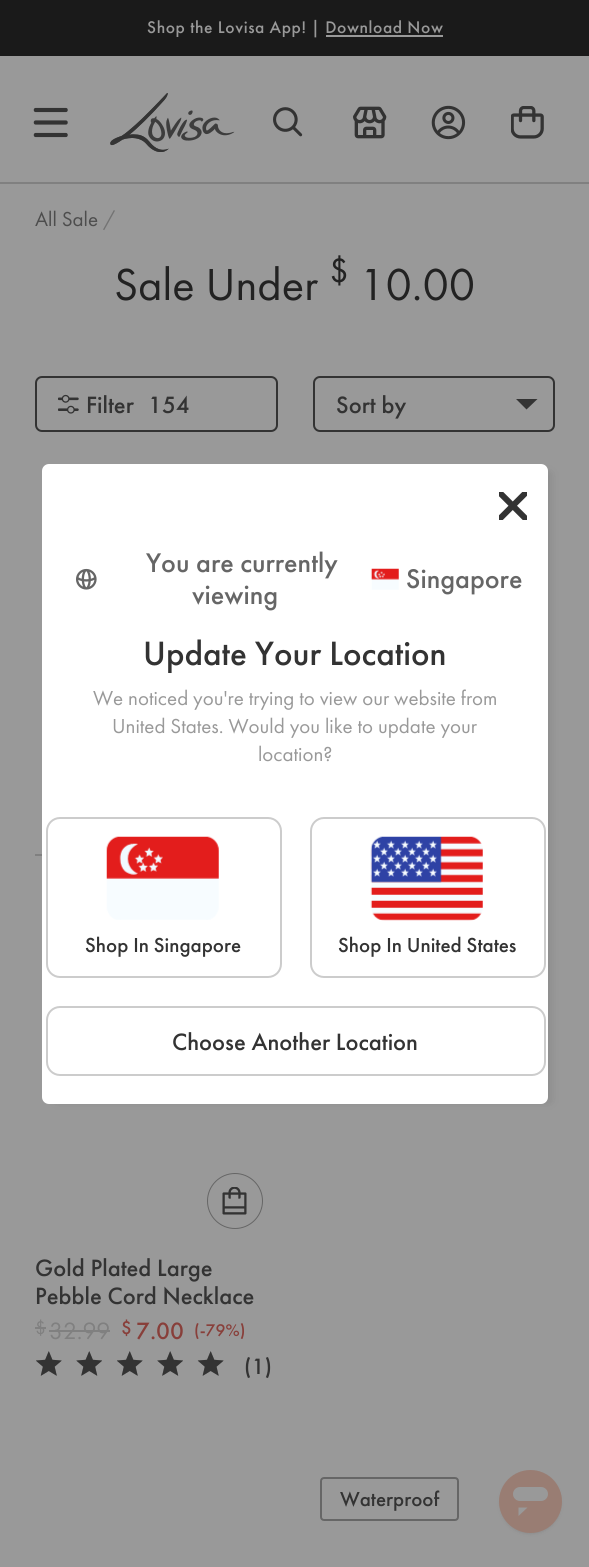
import math
import cairo

surface = cairo.ImageSurface(cairo.FORMAT_RGB24, 589, 1567)
ctx = cairo.Context(surface)
options = cairo.FontOptions()
options.set_hint_metrics(cairo.HINT_METRICS_OFF)
options.set_hint_style(cairo.HINT_STYLE_NONE)
ctx.set_font_options(options)
ctx.set_miter_limit(4)


def spaced_text(x, y, s, letter, word):
    ctx.move_to(x, y)
    for ch in s:
        ctx.show_text(ch)
        ctx.rel_move_to(letter + word * (ch == ' '), 0)


def round_rect(x, y, w, h, r):
    ctx.new_sub_path()
    for i, (u, v) in enumerate([(x + w - r, y + h - r), (x + r, y + h - r), (x + r, y + r), (x + w - r, y + r)]):
        ctx.arc(u, v, r, i * math.pi / 2, (i + 1) * math.pi / 2)
    ctx.close_path()


def shadow(x, y, w, h, r, blur, alpha):
    ctx.push_group_with_content(cairo.CONTENT_ALPHA)
    ctx.set_operator(cairo.OPERATOR_SOURCE)
    for i in range(15, -16, -2):
        e = blur * i / 6
        if min(w, h) + 2 * e > 0:
            ctx.set_source_rgba(0, 0, 0, alpha * math.erfc((i - 1) / 8.5) / 2)
            round_rect(x - e, y - e, w + 2 * e, h + 2 * e, max(0, min(r + e + blur * .6, min(w, h) / 2 + e)))
            ctx.fill()
    ctx.mask(ctx.pop_group())


def picture(path, x, y, w, h):
    ctx.save()
    ctx.set_source_surface(cairo.ImageSurface.create_from_png(path), x, y)
    ctx.rectangle(x, y, w, h)
    ctx.fill()
    ctx.restore()


ctx.set_source_rgb(0.6, 0.6, 0.6)
ctx.paint()
ctx.set_source_rgb(0.102, 0.102, 0.102)
ctx.rectangle(0, 0, 589, 56)
ctx.fill()
ctx.select_font_face("Futura PT Medium")
ctx.set_font_size(17.5)
ctx.set_source_rgb(0.6, 0.6, 0.6)
spaced_text(147, 33, "Shop the Lovisa App! | Download Now", 0.6, 0)
ctx.rectangle(326, 35, 117, 2)
ctx.fill()
ctx.set_source_rgb(0.502, 0.502, 0.502)
ctx.rectangle(0, 182, 589, 2)
ctx.fill()
picture("img1.png", 33, 107, 35, 31)
picture("img2.png", 110, 93, 125, 59)
picture("img3.png", 273, 107, 30, 30)
picture("img4.png", 353, 106, 34, 33)
picture("img5.png", 431, 105, 35, 35)
picture("img6.png", 511, 106, 33, 33)
ctx.select_font_face("Futura PT")
ctx.set_font_size(21)
ctx.set_source_rgb(0.302, 0.302, 0.302)
ctx.move_to(35, 226)
ctx.show_text("All Sale")
ctx.set_source_rgb(0.451, 0.451, 0.451)
ctx.move_to(103, 226)
ctx.show_text("/")
ctx.set_font_size(46.5)
ctx.set_source_rgb(0.133, 0.133, 0.133)
ctx.move_to(114, 300)
ctx.show_text("Sale Under")
ctx.set_font_size(35)
ctx.move_to(329, 282)
ctx.show_text("$")
ctx.set_font_size(46.5)
ctx.move_to(359, 300)
ctx.show_text("10.00")
round_rect(36, 377, 241, 54, 6)
ctx.set_source_rgb(0.2, 0.2, 0.2)
ctx.stroke()
picture("img7.png", 58, 394, 21, 20)
ctx.select_font_face("Futura PT Medium")
ctx.set_font_size(24.5)
ctx.move_to(86, 413)
ctx.show_text("Filter")
ctx.move_to(148, 413)
ctx.show_text("154")
round_rect(314, 377, 240, 54, 6)
ctx.stroke()
ctx.move_to(336, 413)
ctx.show_text("Sort by")
ctx.new_path()
ctx.move_to(518, 399)
ctx.line_to(516, 399)
ctx.line_to(526.5, 409.5)
ctx.line_to(537.5, 399)
ctx.close_path()
ctx.fill()
ctx.set_source_rgb(0.502, 0.502, 0.502)
ctx.rectangle(35, 854, 11, 2)
ctx.fill()
picture("img8.png", 207, 1173, 56, 56)
ctx.set_source_rgb(0.2, 0.2, 0.2)
ctx.move_to(35, 1276)
ctx.show_text("Gold Plated Large")
ctx.move_to(35, 1304)
ctx.show_text("Pebble Cord Necklace")
ctx.select_font_face("Futura PT")
ctx.set_font_size(19)
ctx.set_source_rgb(0.502, 0.502, 0.502)
ctx.move_to(35, 1334)
ctx.show_text("$")
ctx.rectangle(35, 1327, 11, 2)
ctx.fill()
ctx.set_font_size(24.5)
ctx.move_to(49, 1339)
ctx.show_text("32.99")
ctx.rectangle(49, 1330, 61, 2)
ctx.fill()
ctx.select_font_face("Futura PT Medium")
ctx.set_font_size(19)
ctx.set_source_rgb(0.533, 0.247, 0.227)
ctx.move_to(121, 1334)
ctx.show_text("$")
ctx.set_font_size(24.5)
ctx.move_to(136, 1339)
ctx.show_text("7.00")
ctx.set_font_size(17.5)
ctx.move_to(194, 1336)
ctx.show_text("(-79%)")
picture("img9.png", 36, 1351, 188, 25)
picture("img10.png", 36, 1351, 188, 25)
ctx.set_font_size(23)
ctx.set_source_rgb(0.2, 0.2, 0.2)
ctx.move_to(244, 1374)
ctx.show_text("(1)")
round_rect(321, 1478, 137, 42, 3)
ctx.set_source_rgb(0.4, 0.4, 0.4)
ctx.stroke()
ctx.set_font_size(21)
ctx.set_source_rgb(0.2, 0.2, 0.2)
ctx.move_to(340, 1506)
ctx.show_text("Waterproof")
ctx.set_source_rgb(0.184, 0.184, 0.184)
shadow(54, 471, 499, 633, 4, 3.5, 0.1)
ctx.set_source_rgb(1, 1, 1)
round_rect(42, 464, 506, 640, 7)
ctx.fill()
picture("img11.png", 499, 492, 28, 28)
picture("img12.png", 76, 568, 21, 22)
ctx.set_font_size(28)
ctx.set_source_rgb(0.4, 0.4, 0.4)
ctx.move_to(146, 572)
ctx.show_text("You are currently")
picture("img13.png", 370, 568, 29, 22)
ctx.move_to(406, 588)
ctx.show_text("Singapore")
ctx.move_to(192, 604)
ctx.show_text("viewing")
ctx.set_font_size(35)
ctx.set_source_rgb(0.2, 0.2, 0.2)
ctx.move_to(143, 665)
ctx.show_text("Update Your Location")
ctx.select_font_face("Futura PT")
ctx.set_font_size(21)
ctx.set_source_rgb(0.6, 0.6, 0.6)
ctx.move_to(93, 705)
ctx.show_text("We noticed you're trying to view our website from")
ctx.move_to(112, 733)
ctx.show_text("United States. Would you like to update your")
ctx.move_to(258, 761)
ctx.show_text("location?")
round_rect(47, 818, 234, 159, 13)
ctx.set_source_rgb(0.8, 0.8, 0.8)
ctx.stroke()
picture("img14.png", 106, 836, 113, 84)
ctx.select_font_face("Futura PT Medium")
ctx.set_source_rgb(0.2, 0.2, 0.2)
ctx.move_to(85, 952)
ctx.show_text("Shop In Singapore")
round_rect(311, 818, 234, 159, 13)
ctx.set_source_rgb(0.8, 0.8, 0.8)
ctx.stroke()
picture("img15.png", 370, 836, 113, 85)
ctx.set_source_rgb(0.2, 0.2, 0.2)
ctx.move_to(338, 952)
ctx.show_text("Shop In United States")
round_rect(47, 1007, 498, 68, 13)
ctx.set_source_rgb(0.8, 0.8, 0.8)
ctx.stroke()
ctx.set_font_size(24.5)
ctx.set_source_rgb(0.2, 0.2, 0.2)
ctx.move_to(172, 1050)
ctx.show_text("Choose Another Location")
ctx.set_source_rgb(0.192, 0.192, 0.192)
shadow(501, 1474, 59, 59, 29.5, 2, 0.2)
ctx.set_source_rgb(0.6, 0.49, 0.451)
ctx.arc(530.5, 1501.5, 31.5, 0, 2 * math.pi)
ctx.fill()
ctx.set_source_rgb(0.6, 0.6, 0.6)
round_rect(513, 1487, 35, 14, 7)
ctx.fill()
ctx.new_path()
ctx.move_to(518.5, 1516)
ctx.line_to(518.5, 1507.5)
ctx.line_to(527.5, 1507.5)
ctx.close_path()
ctx.fill()
surface.write_to_png("page.png")
